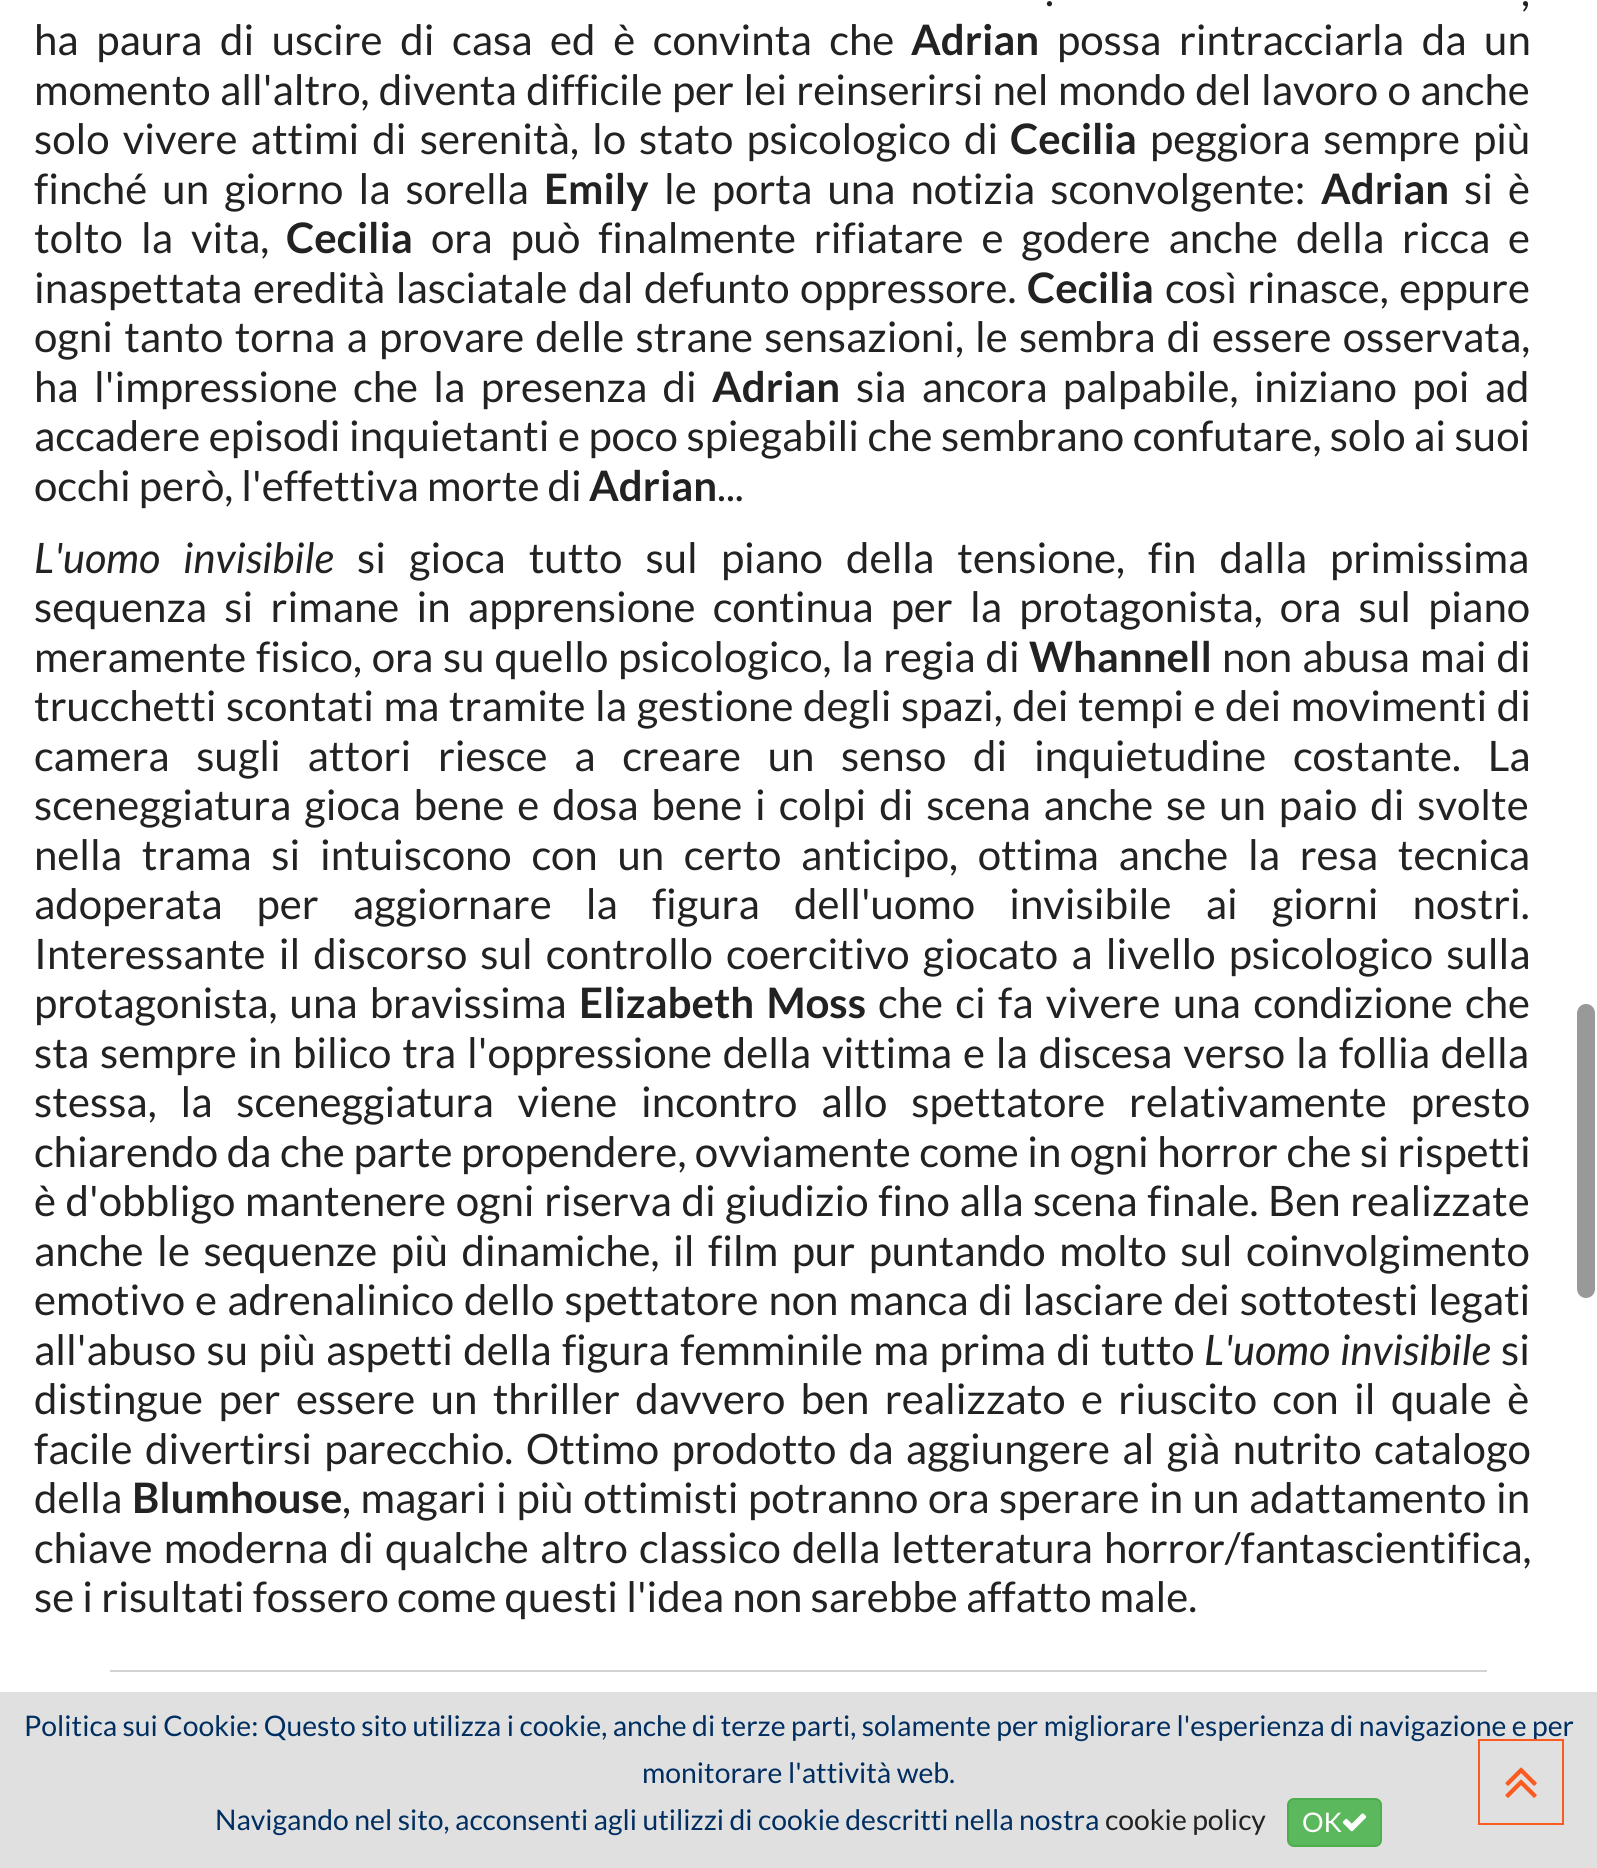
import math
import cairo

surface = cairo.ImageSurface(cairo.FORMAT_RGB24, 1597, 1868)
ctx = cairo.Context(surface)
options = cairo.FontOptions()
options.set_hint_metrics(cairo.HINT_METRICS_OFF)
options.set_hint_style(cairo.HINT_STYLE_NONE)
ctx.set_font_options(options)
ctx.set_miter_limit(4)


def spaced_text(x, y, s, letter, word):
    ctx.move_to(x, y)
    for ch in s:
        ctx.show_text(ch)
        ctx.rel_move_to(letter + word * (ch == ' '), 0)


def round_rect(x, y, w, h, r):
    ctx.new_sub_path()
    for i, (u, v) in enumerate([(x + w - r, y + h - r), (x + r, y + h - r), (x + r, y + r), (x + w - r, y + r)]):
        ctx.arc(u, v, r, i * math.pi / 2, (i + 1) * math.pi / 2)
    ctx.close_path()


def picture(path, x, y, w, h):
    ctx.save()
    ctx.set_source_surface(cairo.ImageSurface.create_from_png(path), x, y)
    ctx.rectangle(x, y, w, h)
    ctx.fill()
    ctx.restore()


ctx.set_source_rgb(1, 1, 1)
ctx.paint()
ctx.select_font_face("Lato")
ctx.set_font_size(42)
ctx.set_source_rgb(0.133, 0.133, 0.133)
spaced_text(1045, 6, ".", 0, 1)
spaced_text(1521, 6, ",", 0, 1)
spaced_text(34, 55, "ha paura di uscire di casa ed è convinta che", 0, 9.5)
ctx.select_font_face("Lato", cairo.FONT_SLANT_NORMAL, cairo.FONT_WEIGHT_BOLD)
ctx.move_to(911, 55)
ctx.show_text("Adrian")
ctx.select_font_face("Lato")
spaced_text(1057, 55, "possa rintracciarla da un", 0, 9.5)
spaced_text(34, 105, "momento all'altro, diventa difficile per lei reinserirsi nel mondo del lavoro o anche", 0, 1.25)
spaced_text(34, 154, "solo vivere attimi di serenità, lo stato psicologico di", 0, 5)
ctx.select_font_face("Lato", cairo.FONT_SLANT_NORMAL, cairo.FONT_WEIGHT_BOLD)
ctx.move_to(1010, 154)
ctx.show_text("Cecilia")
ctx.select_font_face("Lato")
spaced_text(1150, 154, "peggiora sempre più", 0, 4.75)
spaced_text(34, 204, "finché un giorno la sorella", 0, 7)
ctx.select_font_face("Lato", cairo.FONT_SLANT_NORMAL, cairo.FONT_WEIGHT_BOLD)
ctx.move_to(544, 204)
ctx.show_text("Emily")
ctx.select_font_face("Lato")
spaced_text(664, 204, "le porta una notizia sconvolgente:", 0, 7)
ctx.select_font_face("Lato", cairo.FONT_SLANT_NORMAL, cairo.FONT_WEIGHT_BOLD)
ctx.move_to(1321, 204)
ctx.show_text("Adrian")
ctx.select_font_face("Lato")
spaced_text(1464, 204, "si è", 0, 7)
spaced_text(34, 253, "tolto la vita,", 0, 10)
ctx.select_font_face("Lato", cairo.FONT_SLANT_NORMAL, cairo.FONT_WEIGHT_BOLD)
ctx.move_to(286, 253)
ctx.show_text("Cecilia")
ctx.select_font_face("Lato")
spaced_text(431, 253, "ora può finalmente rifiatare e godere anche della ricca e", 0, 9.75)
spaced_text(34, 303, "inaspettata eredità lasciatale dal defunto oppressore.", 0, 2.5)
ctx.select_font_face("Lato", cairo.FONT_SLANT_NORMAL, cairo.FONT_WEIGHT_BOLD)
ctx.move_to(1027, 303)
ctx.show_text("Cecilia")
ctx.select_font_face("Lato")
spaced_text(1165, 303, "così rinasce, eppure", 0, 2.5)
spaced_text(34, 352, "ogni tanto torna a provare delle strane sensazioni, le sembra di essere osservata,", 0, 3.1)
spaced_text(34, 402, "ha l'impressione che la presenza di", 0, 7.25)
ctx.select_font_face("Lato", cairo.FONT_SLANT_NORMAL, cairo.FONT_WEIGHT_BOLD)
ctx.move_to(712, 402)
ctx.show_text("Adrian")
ctx.select_font_face("Lato")
spaced_text(856, 402, "sia ancora palpabile, iniziano poi ad", 0, 7.25)
spaced_text(34, 451, "accadere episodi inquietanti e poco spiegabili che sembrano confutare, solo ai suoi", 0, 0.4)
ctx.move_to(34, 501)
ctx.show_text("occhi però, l'effettiva morte di")
ctx.select_font_face("Lato", cairo.FONT_SLANT_NORMAL, cairo.FONT_WEIGHT_BOLD)
ctx.move_to(589, 501)
ctx.show_text("Adrian")
ctx.select_font_face("Lato")
ctx.move_to(717, 501)
ctx.show_text("...")
ctx.select_font_face("Lato", cairo.FONT_SLANT_ITALIC)
spaced_text(34, 573, "L'uomo invisibile", 0, 15)
ctx.select_font_face("Lato")
spaced_text(357, 573, "si gioca tutto sul piano della tensione, fin dalla primissima", 0, 15)
spaced_text(34, 622, "sequenza si rimane in apprensione continua per la protagonista, ora sul piano", 0, 9.1)
spaced_text(34, 672, "meramente fisico, ora su quello psicologico, la regia di", 0, 1.75)
ctx.select_font_face("Lato", cairo.FONT_SLANT_NORMAL, cairo.FONT_WEIGHT_BOLD)
ctx.move_to(1029, 672)
ctx.show_text("Whannell")
ctx.select_font_face("Lato")
spaced_text(1222, 672, "non abusa mai di", 0, 2)
spaced_text(34, 721, "trucchetti scontati ma tramite la gestione degli spazi, dei tempi e dei movimenti di", 0, 1.4)
spaced_text(34, 771, "camera sugli attori riesce a creare un senso di inquietudine costante. La", 0, 18.6)
spaced_text(34, 820, "sceneggiatura gioca bene e dosa bene i colpi di scena anche se un paio di svolte", 0, 4.75)
spaced_text(34, 870, "nella trama si intuiscono con un certo anticipo, ottima anche la resa tecnica", 0, 11.6)
spaced_text(34, 919, "adoperata per aggiornare la figura dell'uomo invisibile ai giorni nostri.", 0, 26)
spaced_text(34, 969, "Interessante il discorso sul controllo coercitivo giocato a livello psicologico sulla", 0, 5)
spaced_text(34, 1018, "protagonista, una bravissima", 0, 4)
ctx.select_font_face("Lato", cairo.FONT_SLANT_NORMAL, cairo.FONT_WEIGHT_BOLD)
spaced_text(579, 1018, "Elizabeth Moss", 0, 4.25)
ctx.select_font_face("Lato")
spaced_text(878, 1018, "che ci fa vivere una condizione che", 0, 4.25)
spaced_text(34, 1068, "sta sempre in bilico tra l'oppressione della vittima e la discesa verso la follia della", 0, 2.75)
spaced_text(34, 1117, "stessa, la sceneggiatura viene incontro allo spettatore relativamente presto", 0, 15.75)
spaced_text(34, 1167, "chiarendo da che parte propendere, ovviamente come in ogni horror che si rispetti", 0, 0.4)
spaced_text(34, 1216, "è d'obbligo mantenere ogni riserva di giudizio fino alla scena finale. Ben realizzate", 0, 1.5)
spaced_text(34, 1266, "anche le sequenze più dinamiche, il film pur puntando molto sul coinvolgimento", 0, 5.4)
spaced_text(34, 1315, "emotivo e adrenalinico dello spettatore non manca di lasciare dei sottotesti legati", 0, 1.9)
spaced_text(34, 1365, "all'abuso su più aspetti della figura femminile ma prima di tutto", 0, 2.25)
ctx.select_font_face("Lato", cairo.FONT_SLANT_ITALIC)
spaced_text(1204, 1365, "L'uomo invisibile", 0, 2)
ctx.select_font_face("Lato")
ctx.move_to(1501, 1365)
ctx.show_text("si")
spaced_text(34, 1414, "distingue per essere un thriller davvero ben realizzato e riuscito con il quale è", 0, 7.25)
spaced_text(34, 1464, "facile divertirsi parecchio. Ottimo prodotto da aggiungere al già nutrito catalogo", 0, 4.25)
ctx.move_to(34, 1513)
ctx.show_text("della")
ctx.select_font_face("Lato", cairo.FONT_SLANT_NORMAL, cairo.FONT_WEIGHT_BOLD)
ctx.move_to(132, 1513)
ctx.show_text("Blumhouse")
ctx.select_font_face("Lato")
spaced_text(342, 1513, ", magari i più ottimisti potranno ora sperare in un adattamento in", 0, 1.4)
spaced_text(34, 1563, "chiave moderna di qualche altro classico della letteratura horror/fantascientifica,", 0, 3)
ctx.move_to(34, 1612)
ctx.show_text("se i risultati fossero come questi l'idea non sarebbe affatto male.")
ctx.set_source_rgb(0.82, 0.827, 0.831)
ctx.rectangle(110, 1670, 1377, 2)
ctx.fill()
ctx.set_source_rgb(0.6, 0.6, 0.6)
round_rect(1577, 1004, 18, 294, 9)
ctx.fill()
round_rect(1576, 1002, 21, 298, 10.5)
ctx.set_source_rgb(1, 1, 1)
ctx.stroke()
ctx.set_source_rgb(0.878, 0.878, 0.878)
ctx.rectangle(0, 1692, 1597, 176)
ctx.fill()
ctx.set_font_size(28.35)
ctx.set_source_rgb(0, 0.18, 0.376)
ctx.move_to(24, 1736)
ctx.show_text("Politica sui Cookie: Questo sito utilizza i cookie, anche di terze parti, solamente per migliorare l'esperienza di navigazione e per")
ctx.move_to(642, 1783)
ctx.show_text("monitorare l'attività web.")
ctx.move_to(215, 1830)
ctx.show_text("Navigando nel sito, acconsenti agli utilizzi di cookie descritti nella nostra")
ctx.set_source_rgb(0.133, 0.133, 0.133)
ctx.move_to(1105, 1830)
ctx.show_text("cookie policy")
ctx.set_source_rgb(0.361, 0.722, 0.361)
round_rect(1288, 1799, 93, 47, 6)
ctx.fill_preserve()
ctx.set_source_rgb(0.298, 0.682, 0.298)
ctx.stroke()
ctx.set_font_size(27)
ctx.set_source_rgb(1, 1, 1)
ctx.move_to(1302, 1832)
ctx.show_text("OK")
picture("img1.png", 1342, 1813, 25, 19)
ctx.rectangle(1479, 1740, 84, 84)
ctx.set_source_rgb(0.984, 0.357, 0.129)
ctx.stroke()
picture("img2.png", 1505, 1767, 32, 31)
surface.write_to_png("page.png")
